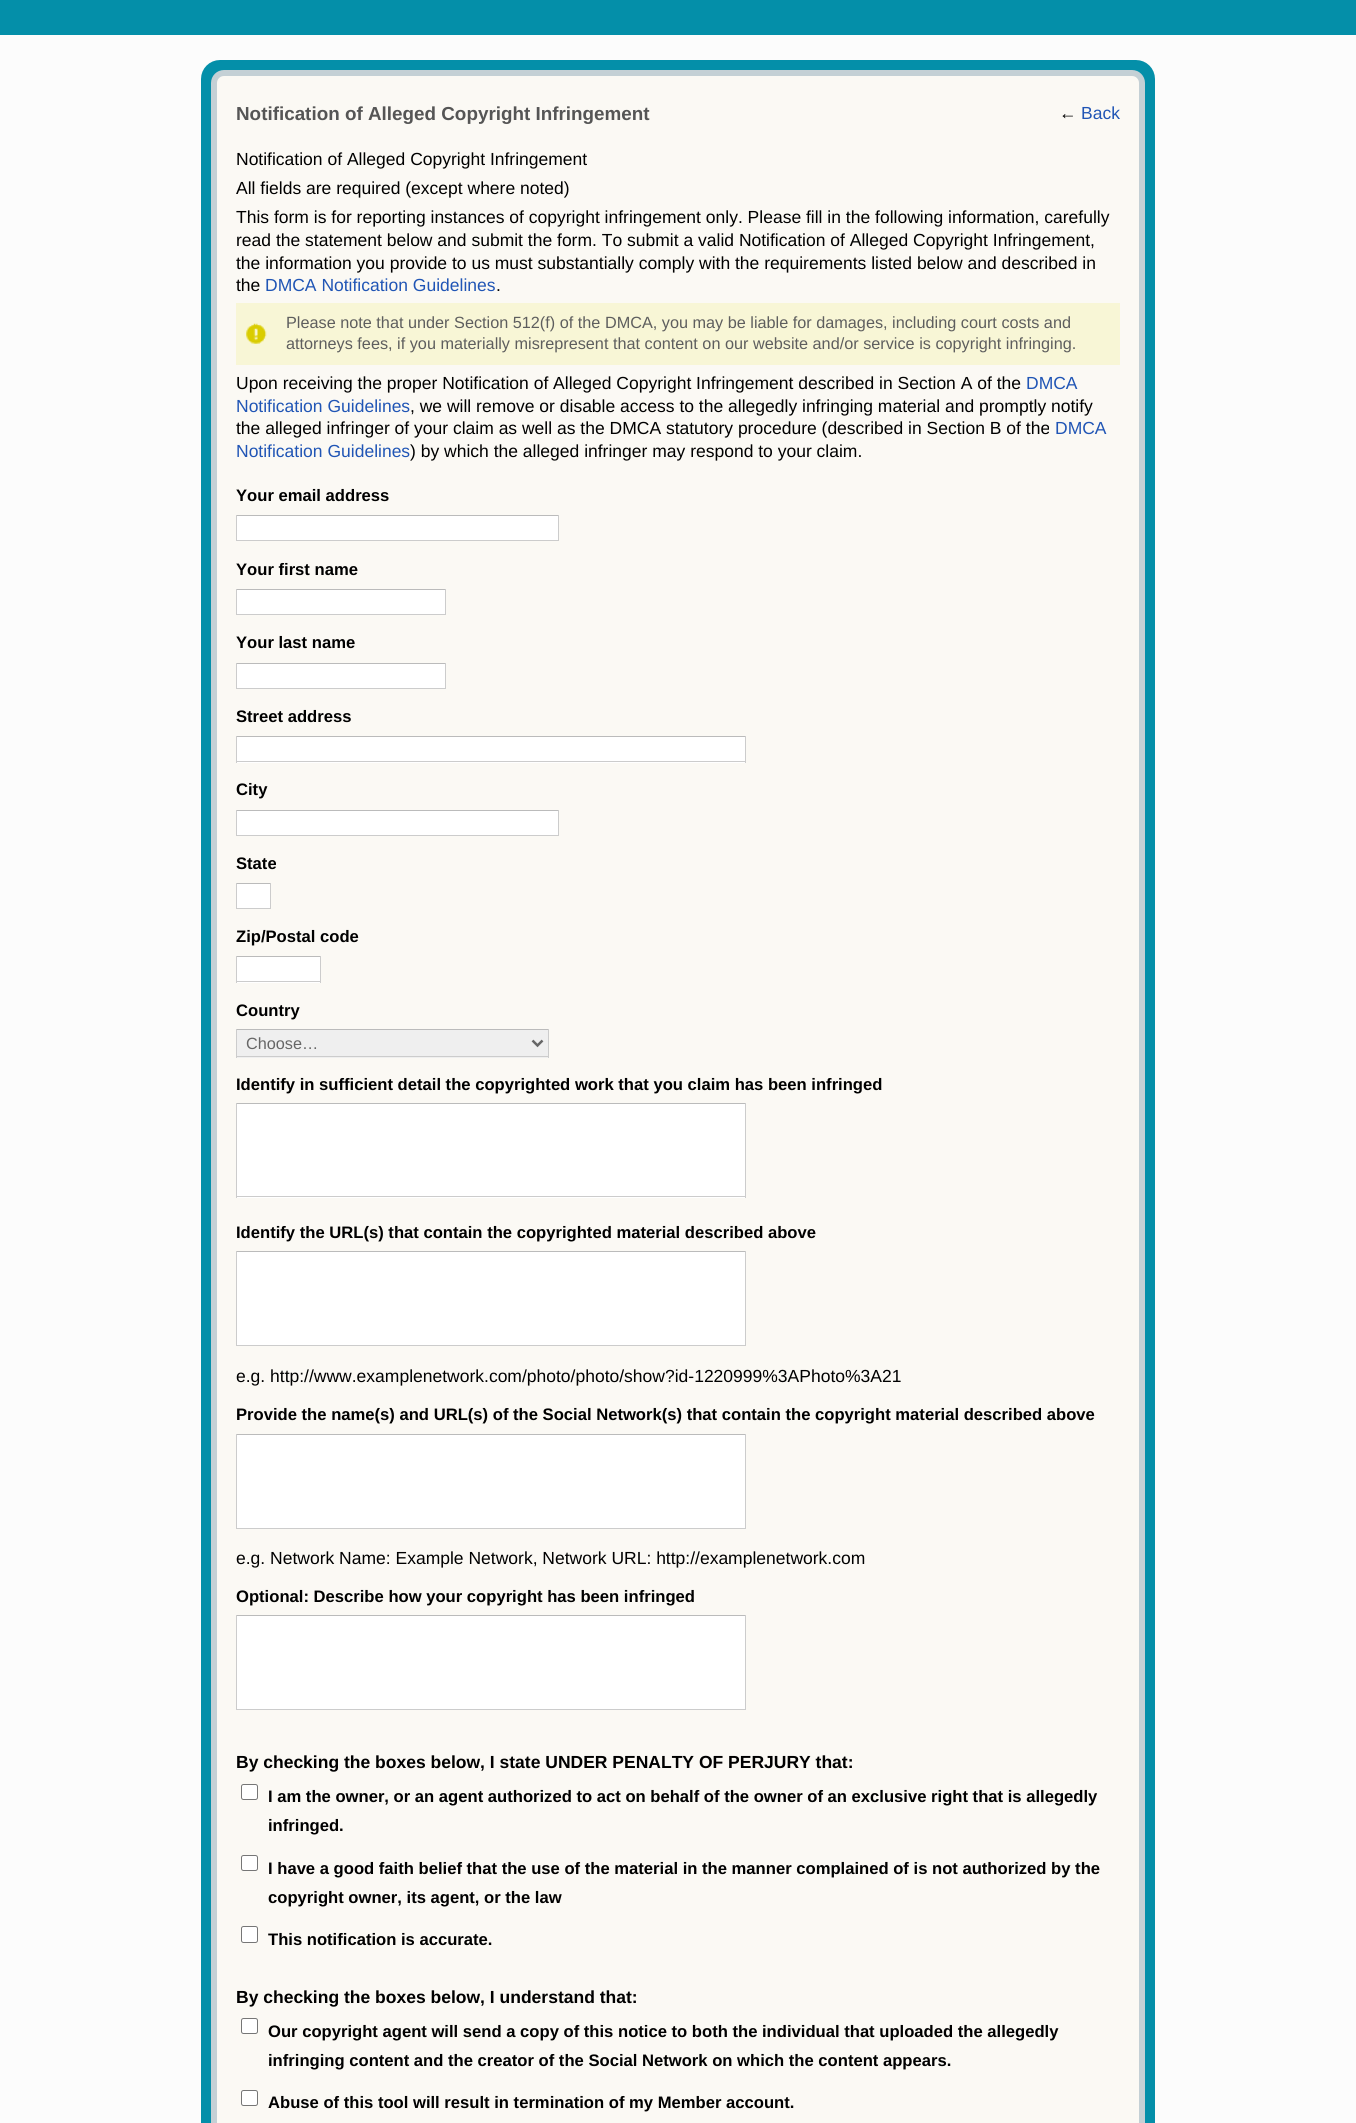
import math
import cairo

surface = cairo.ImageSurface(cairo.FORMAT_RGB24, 1356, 2123)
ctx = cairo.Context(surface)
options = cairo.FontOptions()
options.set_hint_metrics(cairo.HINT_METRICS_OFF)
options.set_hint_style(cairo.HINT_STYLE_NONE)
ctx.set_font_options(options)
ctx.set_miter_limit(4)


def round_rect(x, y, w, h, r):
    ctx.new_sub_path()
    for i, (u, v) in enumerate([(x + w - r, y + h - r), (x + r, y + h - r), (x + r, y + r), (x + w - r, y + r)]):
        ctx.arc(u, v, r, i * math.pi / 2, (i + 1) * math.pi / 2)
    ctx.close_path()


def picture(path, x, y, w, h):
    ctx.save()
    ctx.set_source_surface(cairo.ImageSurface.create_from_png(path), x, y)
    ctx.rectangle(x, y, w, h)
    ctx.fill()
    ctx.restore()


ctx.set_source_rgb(0.016, 0.561, 0.663)
ctx.paint()
ctx.set_source_rgb(0.988, 0.988, 0.988)
ctx.rectangle(0, 35, 1356, 2088)
ctx.fill()
ctx.set_source_rgb(0.016, 0.561, 0.663)
round_rect(206, 65, 944, 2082, 14)
ctx.fill_preserve()
ctx.set_line_width(10)
ctx.stroke()
ctx.set_source_rgb(0.984, 0.973, 0.957)
round_rect(214, 73, 928, 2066, 10)
ctx.fill_preserve()
ctx.set_source_rgb(0.769, 0.816, 0.835)
ctx.set_line_width(6)
ctx.stroke()
ctx.select_font_face("Liberation Sans", cairo.FONT_SLANT_NORMAL, cairo.FONT_WEIGHT_BOLD)
ctx.set_font_size(18.85)
ctx.set_source_rgb(0.333, 0.333, 0.333)
ctx.move_to(236, 120)
ctx.show_text("Notification of Alleged Copyright Infringement")
ctx.set_font_size(17.5)
ctx.set_source_rgb(0, 0, 0)
ctx.move_to(1059, 119)
ctx.show_text("←")
ctx.select_font_face("Liberation Sans")
ctx.set_source_rgb(0.125, 0.333, 0.71)
ctx.move_to(1081, 119)
ctx.show_text("Back")
ctx.set_source_rgb(0, 0, 0)
ctx.move_to(236, 165)
ctx.show_text("Notification of Alleged Copyright Infringement")
ctx.move_to(236, 194)
ctx.show_text("All fields are required (except where noted)")
ctx.move_to(236, 223)
ctx.show_text("This form is for reporting instances of copyright infringement only. Please fill in the following information, carefully")
ctx.move_to(236, 246)
ctx.show_text("read the statement below and submit the form. To submit a valid Notification of Alleged Copyright Infringement,")
ctx.move_to(236, 269)
ctx.show_text("the information you provide to us must substantially comply with the requirements listed below and described in")
ctx.move_to(236, 291)
ctx.show_text("the")
ctx.set_source_rgb(0.125, 0.333, 0.71)
ctx.move_to(265, 291)
ctx.show_text("DMCA Notification Guidelines")
ctx.set_source_rgb(0, 0, 0)
ctx.move_to(496, 291)
ctx.show_text(".")
ctx.set_source_rgb(0.969, 0.961, 0.839)
ctx.rectangle(236, 303, 884, 62)
ctx.fill()
picture("img1.png", 246, 323, 21, 21)
ctx.set_font_size(16.25)
ctx.set_source_rgb(0.369, 0.369, 0.369)
ctx.move_to(286, 328)
ctx.show_text("Please note that under Section 512(f) of the DMCA, you may be liable for damages, including court costs and")
ctx.move_to(286, 349)
ctx.show_text("attorneys fees, if you materially misrepresent that content on our website and/or service is copyright infringing.")
ctx.set_font_size(17.5)
ctx.set_source_rgb(0, 0, 0)
ctx.move_to(236, 389)
ctx.show_text("Upon receiving the proper Notification of Alleged Copyright Infringement described in Section A of the")
ctx.set_source_rgb(0.125, 0.333, 0.71)
ctx.move_to(1026, 389)
ctx.show_text("DMCA")
ctx.move_to(236, 412)
ctx.show_text("Notification Guidelines")
ctx.set_source_rgb(0, 0, 0)
ctx.move_to(410, 412)
ctx.show_text(", we will remove or disable access to the allegedly infringing material and promptly notify")
ctx.move_to(236, 434)
ctx.show_text("the alleged infringer of your claim as well as the DMCA statutory procedure (described in Section B of the")
ctx.set_source_rgb(0.125, 0.333, 0.71)
ctx.move_to(1055, 434)
ctx.show_text("DMCA")
ctx.move_to(236, 457)
ctx.show_text("Notification Guidelines")
ctx.set_source_rgb(0, 0, 0)
ctx.move_to(410, 457)
ctx.show_text(") by which the alleged infringer may respond to your claim.")
ctx.select_font_face("Liberation Sans", cairo.FONT_SLANT_NORMAL, cairo.FONT_WEIGHT_BOLD)
ctx.set_font_size(16.62)
ctx.move_to(236, 501)
ctx.show_text("Your email address")
ctx.set_source_rgb(1, 1, 1)
ctx.rectangle(237, 516, 321, 24)
ctx.fill()
ctx.set_source_rgb(0.733, 0.733, 0.733)
ctx.rectangle(236, 515, 323, 1)
ctx.fill()
ctx.set_source_rgb(0.8, 0.8, 0.8)
ctx.rectangle(558, 515, 1, 26)
ctx.fill()
ctx.rectangle(236, 540, 323, 1)
ctx.fill()
ctx.rectangle(236, 515, 1, 26)
ctx.fill()
ctx.set_source_rgb(0, 0, 0)
ctx.move_to(236, 575)
ctx.show_text("Your first name")
ctx.set_source_rgb(1, 1, 1)
ctx.rectangle(237, 590, 208, 24)
ctx.fill()
ctx.set_source_rgb(0.733, 0.733, 0.733)
ctx.rectangle(236, 589, 210, 1)
ctx.fill()
ctx.set_source_rgb(0.8, 0.8, 0.8)
ctx.rectangle(445, 589, 1, 26)
ctx.fill()
ctx.rectangle(236, 614, 210, 1)
ctx.fill()
ctx.rectangle(236, 589, 1, 26)
ctx.fill()
ctx.set_source_rgb(0, 0, 0)
ctx.move_to(236, 648)
ctx.show_text("Your last name")
ctx.set_source_rgb(1, 1, 1)
ctx.rectangle(237, 664, 208, 24)
ctx.fill()
ctx.set_source_rgb(0.733, 0.733, 0.733)
ctx.rectangle(236, 663, 210, 1)
ctx.fill()
ctx.set_source_rgb(0.8, 0.8, 0.8)
ctx.rectangle(445, 663, 1, 26)
ctx.fill()
ctx.rectangle(236, 688, 210, 1)
ctx.fill()
ctx.rectangle(236, 663, 1, 26)
ctx.fill()
ctx.set_source_rgb(0, 0, 0)
ctx.move_to(236, 722)
ctx.show_text("Street address")
ctx.set_source_rgb(1, 1, 1)
ctx.rectangle(237, 737, 508, 26)
ctx.fill()
ctx.set_source_rgb(0.733, 0.733, 0.733)
ctx.rectangle(236, 736, 510, 1)
ctx.fill()
ctx.set_source_rgb(0.8, 0.8, 0.8)
ctx.rectangle(745, 736, 1, 27)
ctx.fill()
ctx.rectangle(236, 761, 510, 1)
ctx.fill()
ctx.rectangle(236, 736, 1, 27)
ctx.fill()
ctx.set_source_rgb(0, 0, 0)
ctx.move_to(236, 795)
ctx.show_text("City")
ctx.set_source_rgb(1, 1, 1)
ctx.rectangle(237, 811, 321, 24)
ctx.fill()
ctx.set_source_rgb(0.733, 0.733, 0.733)
ctx.rectangle(236, 810, 323, 1)
ctx.fill()
ctx.set_source_rgb(0.8, 0.8, 0.8)
ctx.rectangle(558, 810, 1, 26)
ctx.fill()
ctx.rectangle(236, 835, 323, 1)
ctx.fill()
ctx.rectangle(236, 810, 1, 26)
ctx.fill()
ctx.set_source_rgb(0, 0, 0)
ctx.move_to(236, 869)
ctx.show_text("State")
ctx.set_source_rgb(1, 1, 1)
ctx.rectangle(237, 884, 33, 24)
ctx.fill()
ctx.set_source_rgb(0.733, 0.733, 0.733)
ctx.rectangle(236, 883, 35, 1)
ctx.fill()
ctx.set_source_rgb(0.8, 0.8, 0.8)
ctx.rectangle(270, 883, 1, 26)
ctx.fill()
ctx.rectangle(236, 908, 35, 1)
ctx.fill()
ctx.rectangle(236, 883, 1, 26)
ctx.fill()
ctx.set_source_rgb(0, 0, 0)
ctx.move_to(236, 942)
ctx.show_text("Zip/Postal code")
ctx.set_source_rgb(1, 1, 1)
ctx.rectangle(237, 957, 83, 26)
ctx.fill()
ctx.set_source_rgb(0.733, 0.733, 0.733)
ctx.rectangle(236, 956, 85, 1)
ctx.fill()
ctx.set_source_rgb(0.8, 0.8, 0.8)
ctx.rectangle(320, 956, 1, 27)
ctx.fill()
ctx.rectangle(236, 981, 85, 1)
ctx.fill()
ctx.rectangle(236, 956, 1, 27)
ctx.fill()
ctx.set_source_rgb(0, 0, 0)
ctx.move_to(236, 1016)
ctx.show_text("Country")
ctx.set_source_rgb(0.937, 0.937, 0.937)
ctx.rectangle(237, 1030, 311, 28)
ctx.fill()
ctx.set_source_rgb(0.733, 0.733, 0.733)
ctx.rectangle(236, 1029, 313, 1)
ctx.fill()
ctx.set_source_rgb(0.8, 0.8, 0.8)
ctx.rectangle(548, 1029, 1, 29)
ctx.fill()
ctx.rectangle(236, 1056, 313, 1)
ctx.fill()
ctx.rectangle(236, 1029, 1, 29)
ctx.fill()
ctx.new_path()
ctx.move_to(532.5, 1040.5)
ctx.line_to(537.5, 1045.5)
ctx.line_to(542.5, 1040.5)
ctx.set_source_rgb(0.4, 0.4, 0.4)
ctx.set_line_width(2.5)
ctx.stroke()
ctx.select_font_face("Liberation Sans")
ctx.set_font_size(16.25)
ctx.move_to(246, 1049)
ctx.show_text("Choose…")
ctx.select_font_face("Liberation Sans", cairo.FONT_SLANT_NORMAL, cairo.FONT_WEIGHT_BOLD)
ctx.set_font_size(16.62)
ctx.set_source_rgb(0, 0, 0)
ctx.move_to(236, 1090)
ctx.show_text("Identify in sufficient detail the copyrighted work that you claim has been infringed")
ctx.set_source_rgb(1, 1, 1)
ctx.rectangle(237, 1104, 508, 94)
ctx.fill()
ctx.set_source_rgb(0.733, 0.733, 0.733)
ctx.rectangle(236, 1103, 510, 1)
ctx.fill()
ctx.set_source_rgb(0.8, 0.8, 0.8)
ctx.rectangle(745, 1103, 1, 95)
ctx.fill()
ctx.rectangle(236, 1196, 510, 1)
ctx.fill()
ctx.rectangle(236, 1103, 1, 95)
ctx.fill()
ctx.set_source_rgb(0, 0, 0)
ctx.move_to(236, 1238)
ctx.show_text("Identify the URL(s) that contain the copyrighted material described above")
ctx.set_source_rgb(1, 1, 1)
ctx.rectangle(237, 1252, 508, 93)
ctx.fill()
ctx.set_source_rgb(0.733, 0.733, 0.733)
ctx.rectangle(236, 1251, 510, 1)
ctx.fill()
ctx.set_source_rgb(0.8, 0.8, 0.8)
ctx.rectangle(745, 1251, 1, 95)
ctx.fill()
ctx.rectangle(236, 1345, 510, 1)
ctx.fill()
ctx.rectangle(236, 1251, 1, 95)
ctx.fill()
ctx.select_font_face("Liberation Sans")
ctx.set_font_size(17.5)
ctx.set_source_rgb(0, 0, 0)
ctx.move_to(236, 1382)
ctx.show_text("e.g. http://www.examplenetwork.com/photo/photo/show?id-1220999%3APhoto%3A21")
ctx.select_font_face("Liberation Sans", cairo.FONT_SLANT_NORMAL, cairo.FONT_WEIGHT_BOLD)
ctx.set_font_size(16.62)
ctx.move_to(236, 1420)
ctx.show_text("Provide the name(s) and URL(s) of the Social Network(s) that contain the copyright material described above")
ctx.set_source_rgb(1, 1, 1)
ctx.rectangle(237, 1435, 508, 93)
ctx.fill()
ctx.set_source_rgb(0.733, 0.733, 0.733)
ctx.rectangle(236, 1434, 510, 1)
ctx.fill()
ctx.set_source_rgb(0.8, 0.8, 0.8)
ctx.rectangle(745, 1434, 1, 95)
ctx.fill()
ctx.rectangle(236, 1528, 510, 1)
ctx.fill()
ctx.rectangle(236, 1434, 1, 95)
ctx.fill()
ctx.select_font_face("Liberation Sans")
ctx.set_font_size(17.5)
ctx.set_source_rgb(0, 0, 0)
ctx.move_to(236, 1564)
ctx.show_text("e.g. Network Name: Example Network, Network URL: http://examplenetwork.com")
ctx.select_font_face("Liberation Sans", cairo.FONT_SLANT_NORMAL, cairo.FONT_WEIGHT_BOLD)
ctx.set_font_size(16.62)
ctx.move_to(236, 1602)
ctx.show_text("Optional: Describe how your copyright has been infringed")
ctx.set_source_rgb(1, 1, 1)
ctx.rectangle(237, 1616, 508, 93)
ctx.fill()
ctx.set_source_rgb(0.733, 0.733, 0.733)
ctx.rectangle(236, 1615, 510, 1)
ctx.fill()
ctx.set_source_rgb(0.8, 0.8, 0.8)
ctx.rectangle(745, 1615, 1, 95)
ctx.fill()
ctx.rectangle(236, 1709, 510, 1)
ctx.fill()
ctx.rectangle(236, 1615, 1, 95)
ctx.fill()
ctx.set_font_size(17.5)
ctx.set_source_rgb(0, 0, 0)
ctx.move_to(236, 1768)
ctx.show_text("By checking the boxes below, I state UNDER PENALTY OF PERJURY that:")
ctx.set_source_rgb(1, 1, 1)
round_rect(241.5, 1784.5, 16, 15, 2)
ctx.fill_preserve()
ctx.set_source_rgb(0.463, 0.463, 0.463)
ctx.set_line_width(1)
ctx.stroke()
ctx.set_font_size(16.62)
ctx.set_source_rgb(0, 0, 0)
ctx.move_to(268, 1802)
ctx.show_text("I am the owner, or an agent authorized to act on behalf of the owner of an exclusive right that is allegedly")
ctx.move_to(268, 1831)
ctx.show_text("infringed.")
ctx.set_source_rgb(1, 1, 1)
round_rect(241.5, 1855.5, 16, 15, 2)
ctx.fill_preserve()
ctx.set_source_rgb(0.463, 0.463, 0.463)
ctx.stroke()
ctx.set_source_rgb(0, 0, 0)
ctx.move_to(268, 1874)
ctx.show_text("I have a good faith belief that the use of the material in the manner complained of is not authorized by the")
ctx.move_to(268, 1903)
ctx.show_text("copyright owner, its agent, or the law")
ctx.set_source_rgb(1, 1, 1)
round_rect(241.5, 1926.5, 16, 16, 2)
ctx.fill_preserve()
ctx.set_source_rgb(0.463, 0.463, 0.463)
ctx.stroke()
ctx.set_source_rgb(0, 0, 0)
ctx.move_to(268, 1945)
ctx.show_text("This notification is accurate.")
ctx.set_font_size(17.5)
ctx.move_to(236, 2003)
ctx.show_text("By checking the boxes below, I understand that:")
ctx.set_source_rgb(1, 1, 1)
round_rect(241.5, 2018.5, 16, 15, 2)
ctx.fill_preserve()
ctx.set_source_rgb(0.463, 0.463, 0.463)
ctx.stroke()
ctx.set_font_size(16.62)
ctx.set_source_rgb(0, 0, 0)
ctx.move_to(268, 2037)
ctx.show_text("Our copyright agent will send a copy of this notice to both the individual that uploaded the allegedly")
ctx.move_to(268, 2066)
ctx.show_text("infringing content and the creator of the Social Network on which the content appears.")
ctx.set_source_rgb(1, 1, 1)
round_rect(241.5, 2090.5, 16, 15, 2)
ctx.fill_preserve()
ctx.set_source_rgb(0.463, 0.463, 0.463)
ctx.stroke()
ctx.set_source_rgb(0, 0, 0)
ctx.move_to(268, 2108)
ctx.show_text("Abuse of this tool will result in termination of my Member account.")
surface.write_to_png("page.png")
